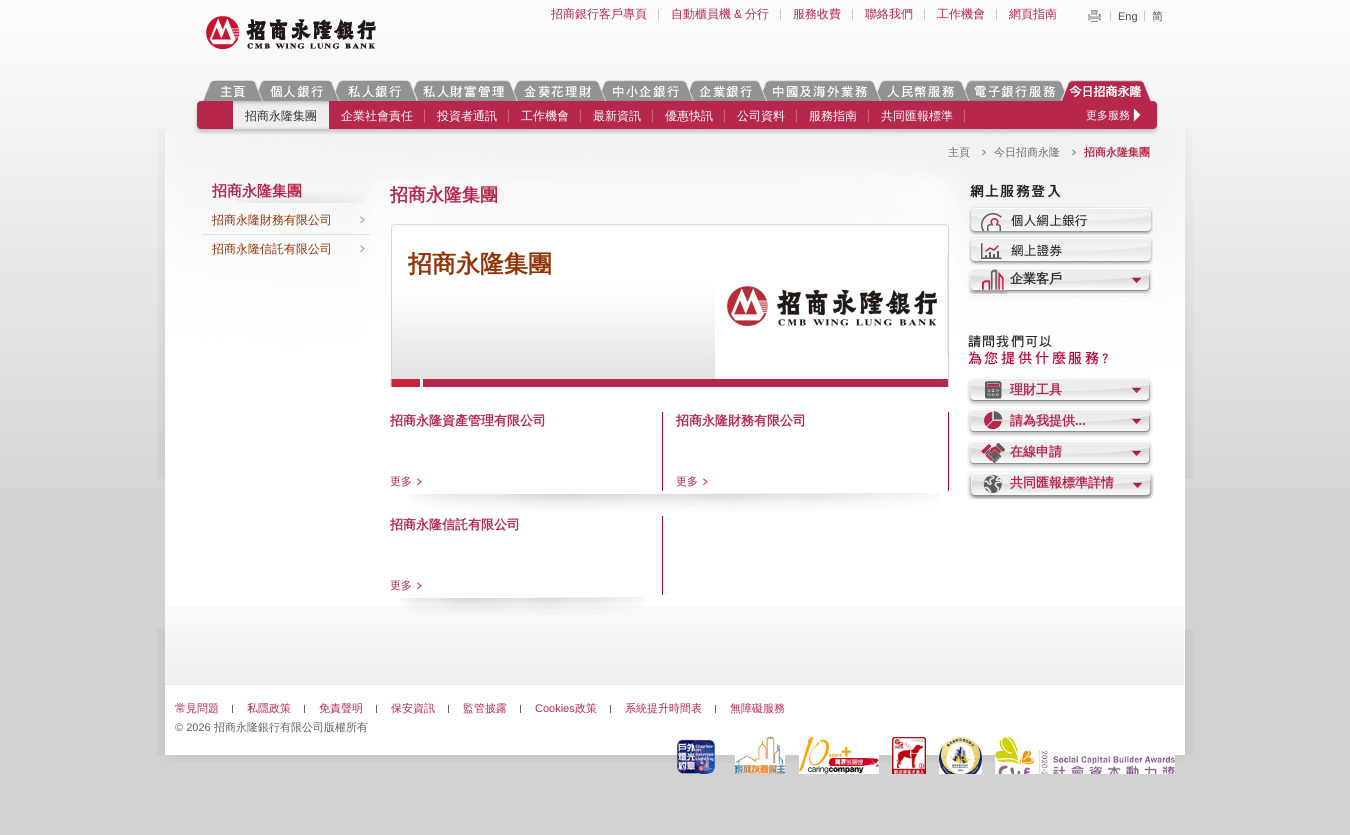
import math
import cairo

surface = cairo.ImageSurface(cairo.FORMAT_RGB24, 1350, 835)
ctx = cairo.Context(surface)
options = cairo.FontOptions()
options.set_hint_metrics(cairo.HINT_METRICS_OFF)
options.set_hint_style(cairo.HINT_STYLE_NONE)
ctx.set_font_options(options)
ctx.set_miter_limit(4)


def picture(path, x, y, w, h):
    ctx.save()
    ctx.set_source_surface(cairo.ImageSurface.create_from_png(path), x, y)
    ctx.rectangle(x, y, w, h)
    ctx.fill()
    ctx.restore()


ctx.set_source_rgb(0.824, 0.824, 0.824)
ctx.paint()
picture("img1.png", 0, 0, 1350, 488)
picture("img2.png", 206, 16, 170, 33)
picture("img3.png", 658, 9, 1, 12)
ctx.select_font_face("WenQuanYi Zen Hei Medium")
ctx.set_font_size(12)
ctx.set_source_rgb(0.718, 0.153, 0.298)
ctx.move_to(551, 18)
ctx.show_text("招商銀行客戶專頁")
picture("img3.png", 780, 9, 1, 12)
ctx.move_to(671, 18)
ctx.show_text("自動櫃員機")
ctx.select_font_face("Liberation Sans")
ctx.move_to(734, 18)
ctx.show_text("&")
ctx.select_font_face("WenQuanYi Zen Hei Medium")
ctx.move_to(745, 18)
ctx.show_text("分行")
picture("img3.png", 852, 9, 1, 12)
ctx.move_to(793, 18)
ctx.show_text("服務收費")
picture("img3.png", 924, 9, 1, 12)
ctx.move_to(865, 18)
ctx.show_text("聯絡我們")
picture("img3.png", 996, 9, 1, 12)
ctx.move_to(937, 18)
ctx.show_text("工作機會")
ctx.move_to(1009, 18)
ctx.show_text("網頁指南")
picture("img4.png", 1110, 10, 1, 12)
picture("img5.png", 1088, 10, 13, 12)
picture("img4.png", 1144, 10, 1, 12)
ctx.select_font_face("Liberation Sans")
ctx.set_font_size(11)
ctx.set_source_rgb(0.302, 0.302, 0.302)
ctx.move_to(1118, 20)
ctx.show_text("Eng")
ctx.select_font_face("WenQuanYi Zen Hei Medium")
ctx.move_to(1152, 20)
ctx.show_text("简")
picture("img15.png", 964, 80, 102, 21)
picture("img14.png", 876, 80, 93, 21)
picture("img13.png", 762, 80, 119, 21)
picture("img12.png", 689, 80, 78, 21)
picture("img11.png", 601, 80, 93, 21)
picture("img10.png", 513, 80, 93, 21)
picture("img9.png", 413, 80, 105, 21)
picture("img8.png", 330, 80, 88, 21)
picture("img7.png", 253, 80, 87, 21)
picture("img6.png", 202, 80, 61, 21)
picture("img16.png", 1060, 80, 91, 21)
picture("img21.png", 157, 129, 1036, 500)
picture("img17.png", 194, 101, 964, 34)
picture("img18.png", 233, 101, 96, 28)
ctx.set_font_size(12)
ctx.set_source_rgb(0.2, 0.2, 0.2)
ctx.move_to(245, 120)
ctx.show_text("招商永隆集團")
picture("img19.png", 424, 109, 1, 14)
ctx.set_source_rgb(1, 1, 1)
ctx.move_to(341, 120)
ctx.show_text("企業社會責任")
picture("img19.png", 508, 109, 1, 14)
ctx.move_to(437, 120)
ctx.show_text("投資者通訊")
picture("img19.png", 580, 109, 1, 14)
ctx.move_to(521, 120)
ctx.show_text("工作機會")
picture("img19.png", 652, 109, 1, 14)
ctx.move_to(593, 120)
ctx.show_text("最新資訊")
picture("img19.png", 724, 109, 1, 14)
ctx.move_to(665, 120)
ctx.show_text("優惠快訊")
picture("img19.png", 796, 109, 1, 14)
ctx.move_to(737, 120)
ctx.show_text("公司資料")
picture("img19.png", 868, 109, 1, 14)
ctx.move_to(809, 120)
ctx.show_text("服務指南")
picture("img19.png", 964, 109, 1, 14)
ctx.move_to(881, 120)
ctx.show_text("共同匯報標準")
picture("img20.png", 1133, 108, 8, 14)
ctx.set_font_size(11)
ctx.move_to(1086, 119)
ctx.show_text("更多服務")
picture("img22.png", 157, 629, 1036, 126)
ctx.set_source_rgb(0.431, 0.431, 0.431)
ctx.move_to(948, 156)
ctx.show_text("主頁")
picture("img23.png", 982, 149, 4, 7)
ctx.move_to(994, 156)
ctx.show_text("今日招商永隆")
picture("img24.png", 1072, 149, 4, 7)
ctx.select_font_face("WenQuanYi Zen Hei", cairo.FONT_SLANT_NORMAL, cairo.FONT_WEIGHT_BOLD)
ctx.set_source_rgb(0.718, 0.153, 0.298)
ctx.move_to(1084, 156)
ctx.show_text("招商永隆集團")
picture("img25.png", 234, 193, 131, 10)
ctx.set_font_size(15)
ctx.move_to(212, 196)
ctx.show_text("招商永隆集團")
ctx.set_source_rgb(0.875, 0.875, 0.875)
ctx.rectangle(202, 234, 168, 1)
ctx.fill()
picture("img26.png", 360, 216, 5, 7)
ctx.select_font_face("WenQuanYi Zen Hei Medium")
ctx.set_font_size(12)
ctx.set_source_rgb(0.573, 0.204, 0.024)
ctx.move_to(212, 224)
ctx.show_text("招商永隆財務有限公司")
picture("img27.png", 360, 245, 5, 7)
ctx.move_to(212, 253)
ctx.show_text("招商永隆信託有限公司")
ctx.select_font_face("WenQuanYi Zen Hei", cairo.FONT_SLANT_NORMAL, cairo.FONT_WEIGHT_BOLD)
ctx.set_font_size(18)
ctx.set_source_rgb(0.718, 0.153, 0.298)
ctx.move_to(390, 201)
ctx.show_text("招商永隆集團")
picture("img28.png", 390, 224, 559, 155)
ctx.set_font_size(24)
ctx.set_source_rgb(0.573, 0.204, 0.024)
ctx.move_to(408, 272)
ctx.show_text("招商永隆集團")
picture("img29.png", 390, 379, 559, 8)
picture("img30.png", 409, 493, 531, 19)
ctx.set_source_rgb(0.725, 0.008, 0.22)
ctx.rectangle(662, 412, 1, 79)
ctx.fill()
ctx.set_font_size(13)
ctx.set_source_rgb(0.718, 0.153, 0.298)
ctx.move_to(390, 425)
ctx.show_text("招商永隆資產管理有限公司")
picture("img31.png", 417, 478, 5, 7)
ctx.select_font_face("WenQuanYi Zen Hei Medium")
ctx.set_font_size(11)
ctx.move_to(390, 485)
ctx.show_text("更多")
ctx.set_source_rgb(0.725, 0.008, 0.22)
ctx.rectangle(948, 412, 1, 79)
ctx.fill()
ctx.select_font_face("WenQuanYi Zen Hei", cairo.FONT_SLANT_NORMAL, cairo.FONT_WEIGHT_BOLD)
ctx.set_font_size(13)
ctx.set_source_rgb(0.718, 0.153, 0.298)
ctx.move_to(676, 425)
ctx.show_text("招商永隆財務有限公司")
picture("img31.png", 703, 478, 5, 7)
ctx.select_font_face("WenQuanYi Zen Hei Medium")
ctx.set_font_size(11)
ctx.move_to(676, 485)
ctx.show_text("更多")
picture("img42.png", 165, 606, 1019, 79)
picture("img32.png", 399, 597, 248, 18)
ctx.set_source_rgb(0.725, 0.008, 0.22)
ctx.rectangle(662, 516, 1, 79)
ctx.fill()
ctx.select_font_face("WenQuanYi Zen Hei", cairo.FONT_SLANT_NORMAL, cairo.FONT_WEIGHT_BOLD)
ctx.set_font_size(13)
ctx.set_source_rgb(0.718, 0.153, 0.298)
ctx.move_to(390, 529)
ctx.show_text("招商永隆信託有限公司")
picture("img31.png", 417, 582, 5, 7)
ctx.select_font_face("WenQuanYi Zen Hei Medium")
ctx.set_font_size(11)
ctx.move_to(390, 589)
ctx.show_text("更多")
picture("img33.png", 970, 184, 91, 14)
picture("img34.png", 969, 207, 184, 28)
picture("img35.png", 969, 237, 184, 28)
picture("img36.png", 967, 267, 186, 30)
ctx.select_font_face("WenQuanYi Zen Hei", cairo.FONT_SLANT_NORMAL, cairo.FONT_WEIGHT_BOLD)
ctx.set_font_size(13)
ctx.set_source_rgb(0.2, 0.2, 0.2)
ctx.move_to(1010, 283)
ctx.show_text("企業客戶")
picture("img37.png", 968, 335, 140, 30)
picture("img38.png", 967, 377, 186, 29)
ctx.set_source_rgb(0.718, 0.153, 0.298)
ctx.move_to(1010, 394)
ctx.show_text("理財工具")
picture("img39.png", 967, 408, 186, 29)
ctx.move_to(1010, 425)
ctx.show_text("請為我提供")
ctx.select_font_face("Liberation Sans", cairo.FONT_SLANT_NORMAL, cairo.FONT_WEIGHT_BOLD)
ctx.move_to(1075, 425)
ctx.show_text("...")
picture("img40.png", 967, 440, 186, 30)
ctx.select_font_face("WenQuanYi Zen Hei", cairo.FONT_SLANT_NORMAL, cairo.FONT_WEIGHT_BOLD)
ctx.move_to(1010, 456)
ctx.show_text("在線申請")
picture("img41.png", 967, 471, 187, 28)
ctx.move_to(1010, 487)
ctx.show_text("共同匯報標準詳情")
ctx.set_source_rgb(0.38, 0.38, 0.38)
ctx.rectangle(232, 705, 1, 8)
ctx.fill()
ctx.select_font_face("WenQuanYi Zen Hei Medium")
ctx.set_font_size(11)
ctx.set_source_rgb(0.718, 0.153, 0.298)
ctx.move_to(175, 712)
ctx.show_text("常見問題")
ctx.set_source_rgb(0.38, 0.38, 0.38)
ctx.rectangle(304, 705, 1, 8)
ctx.fill()
ctx.set_source_rgb(0.718, 0.153, 0.298)
ctx.move_to(247, 712)
ctx.show_text("私隱政策")
ctx.set_source_rgb(0.38, 0.38, 0.38)
ctx.rectangle(376, 705, 1, 8)
ctx.fill()
ctx.set_source_rgb(0.718, 0.153, 0.298)
ctx.move_to(319, 712)
ctx.show_text("免責聲明")
ctx.set_source_rgb(0.38, 0.38, 0.38)
ctx.rectangle(448, 705, 1, 8)
ctx.fill()
ctx.set_source_rgb(0.718, 0.153, 0.298)
ctx.move_to(391, 712)
ctx.show_text("保安資訊")
ctx.set_source_rgb(0.38, 0.38, 0.38)
ctx.rectangle(520, 705, 1, 8)
ctx.fill()
ctx.set_source_rgb(0.718, 0.153, 0.298)
ctx.move_to(463, 712)
ctx.show_text("監管披露")
ctx.set_source_rgb(0.38, 0.38, 0.38)
ctx.rectangle(610, 705, 1, 8)
ctx.fill()
ctx.select_font_face("Liberation Sans")
ctx.set_source_rgb(0.718, 0.153, 0.298)
ctx.move_to(535, 712)
ctx.show_text("Cookies")
ctx.select_font_face("WenQuanYi Zen Hei Medium")
ctx.move_to(575, 712)
ctx.show_text("政策")
ctx.set_source_rgb(0.38, 0.38, 0.38)
ctx.rectangle(715, 705, 1, 8)
ctx.fill()
ctx.set_source_rgb(0.718, 0.153, 0.298)
ctx.move_to(625, 712)
ctx.show_text("系統提升時間表")
ctx.move_to(730, 712)
ctx.show_text("無障礙服務")
ctx.select_font_face("Liberation Sans")
ctx.set_source_rgb(0.38, 0.38, 0.38)
ctx.move_to(175, 731)
ctx.show_text("© 2026")
ctx.select_font_face("WenQuanYi Zen Hei Medium")
ctx.move_to(214, 731)
ctx.show_text("招商永隆銀行有限公司版權所有")
picture("img49.png", 164, 755, 1022, 8)
picture("img43.png", 676, 739, 40, 35)
picture("img44.png", 735, 737, 50, 37)
picture("img45.png", 799, 737, 80, 37)
picture("img46.png", 892, 737, 34, 37)
picture("img47.png", 939, 737, 43, 37)
picture("img48.png", 995, 737, 180, 37)
surface.write_to_png("page.png")
